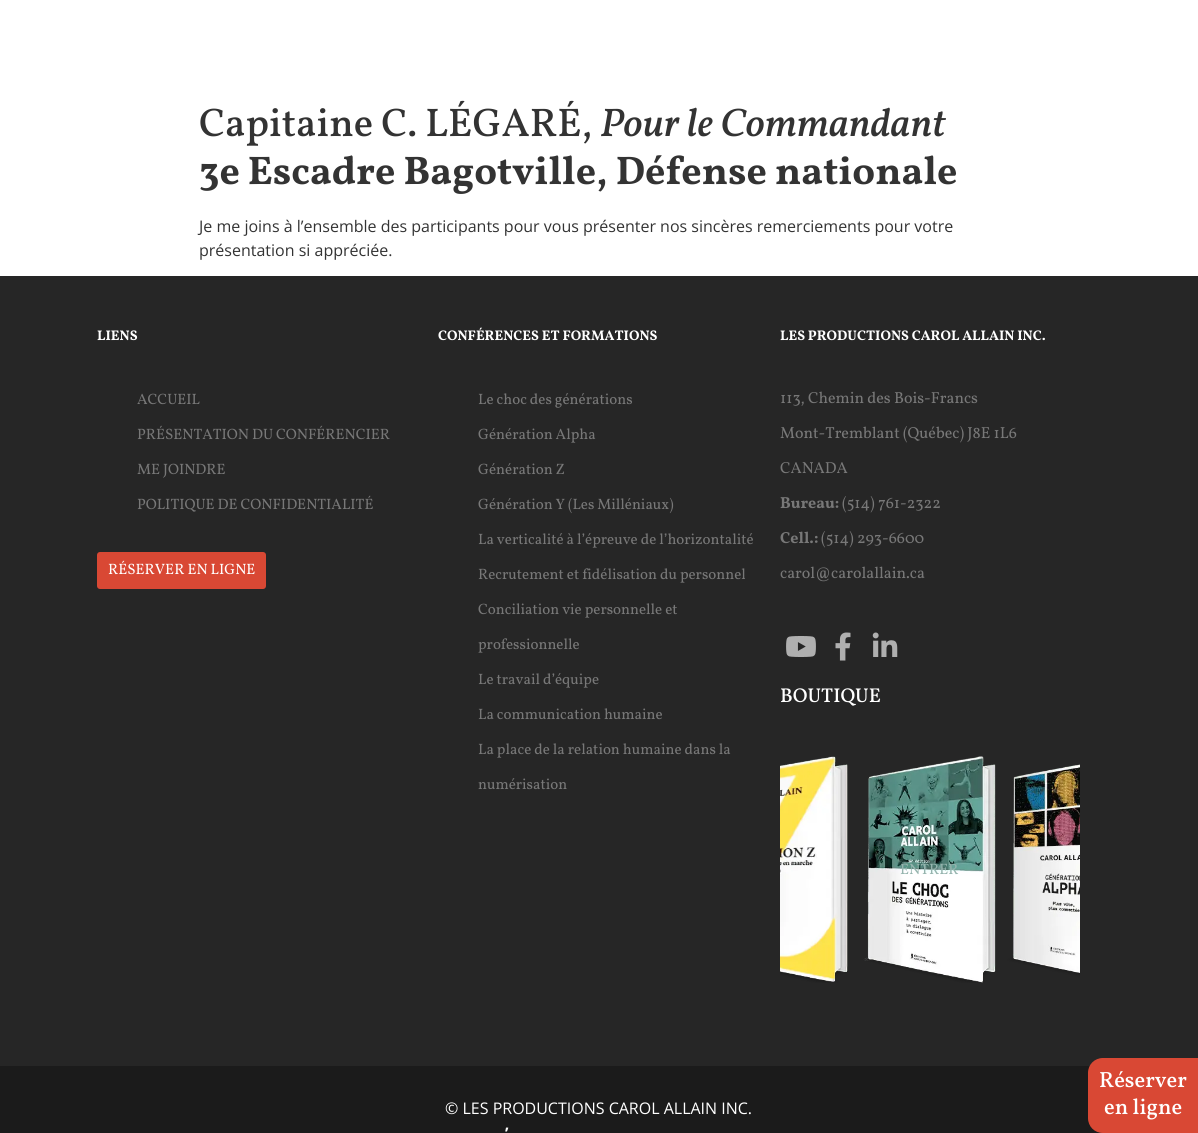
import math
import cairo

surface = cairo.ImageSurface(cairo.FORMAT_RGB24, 1198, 1133)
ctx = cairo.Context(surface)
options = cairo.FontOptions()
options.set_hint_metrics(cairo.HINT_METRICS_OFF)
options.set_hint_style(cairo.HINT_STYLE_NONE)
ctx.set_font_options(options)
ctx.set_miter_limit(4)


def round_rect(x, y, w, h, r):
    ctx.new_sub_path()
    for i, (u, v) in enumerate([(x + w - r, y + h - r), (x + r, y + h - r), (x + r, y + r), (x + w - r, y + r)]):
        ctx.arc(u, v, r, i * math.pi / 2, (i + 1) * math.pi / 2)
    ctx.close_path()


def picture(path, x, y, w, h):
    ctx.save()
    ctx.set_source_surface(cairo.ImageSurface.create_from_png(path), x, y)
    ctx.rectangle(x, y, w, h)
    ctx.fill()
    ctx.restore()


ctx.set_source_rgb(1, 1, 1)
ctx.paint()
ctx.select_font_face("Vollkorn Medium")
ctx.set_font_size(40)
ctx.set_source_rgb(0.2, 0.2, 0.2)
ctx.move_to(199, 136)
ctx.show_text("Capitaine C. LÉGARÉ,")
ctx.select_font_face("Vollkorn Medium", cairo.FONT_SLANT_ITALIC)
ctx.move_to(600, 136)
ctx.show_text("Pour le Commandant")
ctx.select_font_face("Vollkorn", cairo.FONT_SLANT_NORMAL, cairo.FONT_WEIGHT_BOLD)
ctx.move_to(199, 184)
ctx.show_text("3e Escadre Bagotville, Défense nationale")
ctx.select_font_face("Open Sans")
ctx.set_font_size(16)
ctx.move_to(199, 232)
ctx.show_text("Je me joins à l’ensemble des participants pour vous présenter nos sincères remerciements pour votre")
ctx.move_to(199, 256)
ctx.show_text("présentation si appréciée.")
ctx.set_source_rgb(0.149, 0.149, 0.149)
ctx.rectangle(0, 276, 1198, 790)
ctx.fill()
ctx.select_font_face("Vollkorn", cairo.FONT_SLANT_NORMAL, cairo.FONT_WEIGHT_BOLD)
ctx.set_font_size(14)
ctx.set_source_rgb(1, 1, 1)
ctx.move_to(97, 340)
ctx.show_text("LIENS")
ctx.select_font_face("Vollkorn")
ctx.set_font_size(15)
ctx.set_source_rgb(0.471, 0.471, 0.471)
ctx.move_to(137, 404)
ctx.show_text("ACCUEIL")
ctx.move_to(137, 439)
ctx.show_text("PRÉSENTATION DU CONFÉRENCIER")
ctx.move_to(137, 474)
ctx.show_text("ME JOINDRE")
ctx.move_to(137, 509)
ctx.show_text("POLITIQUE DE CONFIDENTIALITÉ")
ctx.set_source_rgb(0.851, 0.282, 0.204)
round_rect(97, 552, 169, 37, 3)
ctx.fill()
ctx.set_source_rgb(1, 1, 1)
ctx.move_to(108, 574)
ctx.show_text("RÉSERVER EN LIGNE")
ctx.select_font_face("Vollkorn", cairo.FONT_SLANT_NORMAL, cairo.FONT_WEIGHT_BOLD)
ctx.set_font_size(14)
ctx.move_to(438, 340)
ctx.show_text("CONFÉRENCES ET FORMATIONS")
ctx.select_font_face("Vollkorn")
ctx.set_font_size(15)
ctx.set_source_rgb(0.471, 0.471, 0.471)
ctx.move_to(478, 404)
ctx.show_text("Le choc des générations")
ctx.move_to(478, 439)
ctx.show_text("Génération Alpha")
ctx.move_to(478, 474)
ctx.show_text("Génération Z")
ctx.move_to(478, 509)
ctx.show_text("Génération Y (Les Milléniaux)")
ctx.move_to(478, 544)
ctx.show_text("La verticalité à l’épreuve de l’horizontalité")
ctx.move_to(478, 579)
ctx.show_text("Recrutement et fidélisation du personnel")
ctx.move_to(478, 614)
ctx.show_text("Conciliation vie personnelle et")
ctx.move_to(478, 649)
ctx.show_text("professionnelle")
ctx.move_to(478, 684)
ctx.show_text("Le travail d’équipe")
ctx.move_to(478, 719)
ctx.show_text("La communication humaine")
ctx.move_to(478, 754)
ctx.show_text("La place de la relation humaine dans la")
ctx.move_to(478, 789)
ctx.show_text("numérisation")
ctx.select_font_face("Vollkorn", cairo.FONT_SLANT_NORMAL, cairo.FONT_WEIGHT_BOLD)
ctx.set_font_size(14)
ctx.set_source_rgb(1, 1, 1)
ctx.move_to(780, 340)
ctx.show_text("LES PRODUCTIONS CAROL ALLAIN INC.")
ctx.select_font_face("Vollkorn")
ctx.set_font_size(16)
ctx.set_source_rgb(0.471, 0.471, 0.471)
ctx.move_to(780, 403)
ctx.show_text("113, Chemin des Bois-Francs")
ctx.move_to(780, 438)
ctx.show_text("Mont-Tremblant (Québec) J8E 1L6")
ctx.move_to(780, 473)
ctx.show_text("CANADA")
ctx.select_font_face("Vollkorn", cairo.FONT_SLANT_NORMAL, cairo.FONT_WEIGHT_BOLD)
ctx.move_to(780, 508)
ctx.show_text("Bureau:")
ctx.select_font_face("Vollkorn")
ctx.move_to(842, 508)
ctx.show_text("(514) 761-2322")
ctx.select_font_face("Vollkorn", cairo.FONT_SLANT_NORMAL, cairo.FONT_WEIGHT_BOLD)
ctx.move_to(780, 543)
ctx.show_text("Cell.:")
ctx.select_font_face("Vollkorn")
ctx.move_to(821, 543)
ctx.show_text("(514) 293-6600")
ctx.move_to(780, 578)
ctx.show_text("carol@carolallain.ca")
picture("img1.png", 786, 636, 30, 21)
picture("img2.png", 835, 632, 16, 29)
picture("img3.png", 872, 632, 26, 25)
ctx.select_font_face("Vollkorn Medium")
ctx.set_font_size(20)
ctx.set_source_rgb(1, 1, 1)
ctx.move_to(780, 702)
ctx.show_text("BOUTIQUE")
picture("img4.png", 780, 756, 300, 227)
ctx.select_font_face("Vollkorn")
ctx.set_font_size(15)
ctx.set_source_rgb(0.584, 0.706, 0.682)
ctx.move_to(900, 874)
ctx.show_text("ENTRER")
ctx.set_source_rgb(0.106, 0.106, 0.106)
ctx.rectangle(0, 1066, 1103, 67)
ctx.fill()
ctx.select_font_face("Open Sans")
ctx.set_font_size(16)
ctx.set_source_rgb(1, 1, 1)
ctx.move_to(445, 1114)
ctx.show_text("© LES PRODUCTIONS CAROL ALLAIN INC.")
ctx.select_font_face("Open Sans", cairo.FONT_SLANT_NORMAL, cairo.FONT_WEIGHT_BOLD)
ctx.move_to(505, 1139)
ctx.show_text("’")
ctx.set_source_rgb(0.851, 0.282, 0.204)
ctx.new_path()
ctx.move_to(1103, 1058)
ctx.line_to(1198, 1058)
ctx.line_to(1198, 1133)
ctx.line_to(1103, 1133)
ctx.curve_to(1094.5, 1133, 1088, 1126.5, 1088, 1118)
ctx.line_to(1088, 1073)
ctx.curve_to(1088, 1064.5, 1094.5, 1058, 1103, 1058)
ctx.close_path()
ctx.fill()
ctx.select_font_face("Vollkorn Medium")
ctx.set_font_size(22)
ctx.set_source_rgb(1, 1, 1)
ctx.move_to(1099, 1087)
ctx.show_text("Réserver")
ctx.move_to(1104, 1114)
ctx.show_text("en ligne")
surface.write_to_png("page.png")
